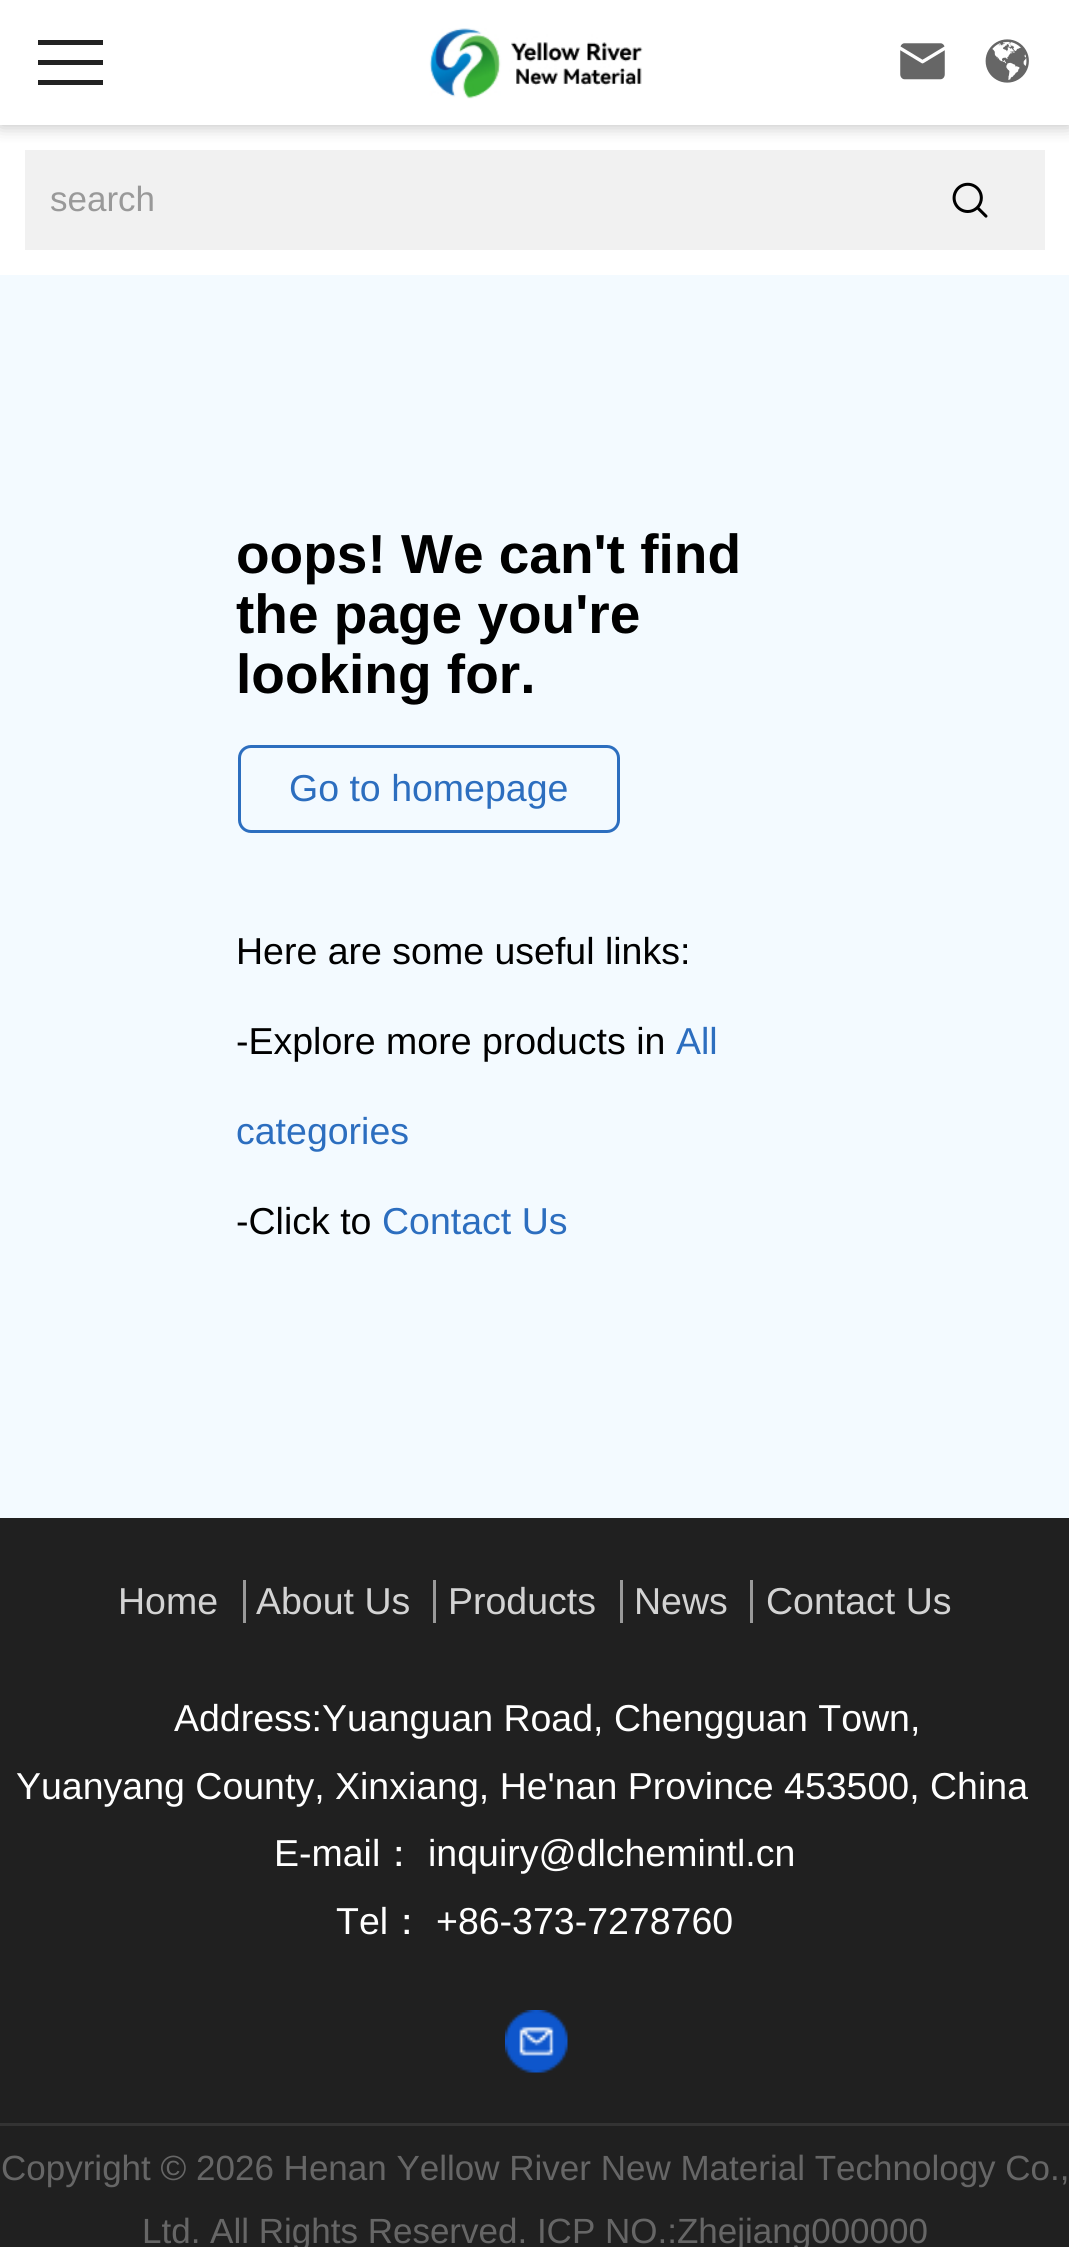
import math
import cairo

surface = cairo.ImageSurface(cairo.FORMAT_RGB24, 1069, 2247)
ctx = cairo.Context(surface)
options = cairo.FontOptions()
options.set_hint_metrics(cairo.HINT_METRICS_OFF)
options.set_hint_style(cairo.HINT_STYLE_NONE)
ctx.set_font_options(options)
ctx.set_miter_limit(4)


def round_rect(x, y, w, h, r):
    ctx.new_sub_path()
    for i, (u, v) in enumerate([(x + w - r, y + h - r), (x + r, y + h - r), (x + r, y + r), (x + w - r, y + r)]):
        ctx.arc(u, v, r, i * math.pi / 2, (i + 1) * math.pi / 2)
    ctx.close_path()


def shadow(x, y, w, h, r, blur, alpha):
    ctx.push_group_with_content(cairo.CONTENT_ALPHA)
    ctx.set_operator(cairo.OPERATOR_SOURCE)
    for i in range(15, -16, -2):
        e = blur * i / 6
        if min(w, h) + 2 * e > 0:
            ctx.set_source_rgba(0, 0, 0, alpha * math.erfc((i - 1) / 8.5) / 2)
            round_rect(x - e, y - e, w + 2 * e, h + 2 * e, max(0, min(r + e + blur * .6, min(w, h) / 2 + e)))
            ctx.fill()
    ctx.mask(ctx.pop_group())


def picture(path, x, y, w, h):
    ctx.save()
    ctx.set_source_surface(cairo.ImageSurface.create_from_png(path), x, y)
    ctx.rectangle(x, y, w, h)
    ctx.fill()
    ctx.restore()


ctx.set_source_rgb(0.953, 0.98, 1)
ctx.paint()
ctx.set_source_rgb(1, 1, 1)
ctx.rectangle(0, 0, 1069, 275)
ctx.fill()
ctx.set_source_rgb(0.945, 0.945, 0.945)
ctx.rectangle(25, 150, 1020, 100)
ctx.fill()
ctx.save()
ctx.rectangle(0, 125, 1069, 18)
ctx.clip()
ctx.set_source_rgb(0.725, 0.725, 0.725)
shadow(0, 0, 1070, 125, 0, 9, 1)
ctx.restore()
ctx.set_source_rgb(0.133, 0.133, 0.133)
ctx.rectangle(38, 40, 65, 5)
ctx.fill()
ctx.rectangle(38, 60, 65, 5)
ctx.fill()
ctx.rectangle(38, 80, 65, 5)
ctx.fill()
picture("img1.png", 429, 28, 214, 71)
picture("img2.png", 900, 43, 45, 37)
picture("img3.png", 985, 39, 44, 44)
ctx.select_font_face("Liberation Sans")
ctx.set_font_size(35)
ctx.set_source_rgb(0.6, 0.6, 0.6)
ctx.move_to(50, 211)
ctx.show_text("search")
picture("img4.png", 952, 182, 36, 36)
ctx.select_font_face("Liberation Sans", cairo.FONT_SLANT_NORMAL, cairo.FONT_WEIGHT_BOLD)
ctx.set_font_size(55)
ctx.set_source_rgb(0, 0, 0)
ctx.move_to(236, 573)
ctx.show_text("oops! We can't find")
ctx.move_to(236, 633)
ctx.show_text("the page you're")
ctx.move_to(236, 693)
ctx.show_text("looking for.")
round_rect(239.5, 746.5, 379, 85, 11.5)
ctx.set_source_rgb(0.173, 0.431, 0.749)
ctx.set_line_width(3)
ctx.stroke()
ctx.select_font_face("Liberation Sans")
ctx.set_font_size(37.5)
ctx.move_to(289, 801)
ctx.show_text("Go to homepage")
ctx.set_source_rgb(0, 0, 0)
ctx.move_to(236, 964)
ctx.show_text("Here are some useful links:")
ctx.move_to(236, 1054)
ctx.show_text("-Explore more products in")
ctx.set_source_rgb(0.173, 0.431, 0.749)
ctx.move_to(676, 1054)
ctx.show_text("All")
ctx.move_to(236, 1144)
ctx.show_text("categories")
ctx.set_source_rgb(0, 0, 0)
ctx.move_to(236, 1234)
ctx.show_text("-Click to")
ctx.set_source_rgb(0.173, 0.431, 0.749)
ctx.move_to(382, 1234)
ctx.show_text("Contact Us")
ctx.set_source_rgb(0.125, 0.125, 0.125)
ctx.rectangle(0, 1518, 1069, 729)
ctx.fill()
ctx.set_source_rgb(0.827, 0.827, 0.827)
ctx.move_to(118, 1614)
ctx.show_text("Home")
ctx.move_to(256, 1614)
ctx.show_text("About Us")
ctx.set_source_rgb(0.6, 0.6, 0.6)
ctx.rectangle(243, 1580, 3, 43)
ctx.fill()
ctx.set_source_rgb(0.827, 0.827, 0.827)
ctx.move_to(448, 1614)
ctx.show_text("Products")
ctx.set_source_rgb(0.6, 0.6, 0.6)
ctx.rectangle(433, 1580, 3, 43)
ctx.fill()
ctx.set_source_rgb(0.827, 0.827, 0.827)
ctx.move_to(634, 1614)
ctx.show_text("News")
ctx.set_source_rgb(0.6, 0.6, 0.6)
ctx.rectangle(620, 1580, 3, 43)
ctx.fill()
ctx.set_source_rgb(0.827, 0.827, 0.827)
ctx.move_to(766, 1614)
ctx.show_text("Contact Us")
ctx.set_source_rgb(0.6, 0.6, 0.6)
ctx.rectangle(750, 1580, 3, 43)
ctx.fill()
ctx.set_source_rgb(1, 1, 1)
ctx.move_to(174, 1731)
ctx.show_text("Address:Yuanguan Road, Chengguan Town,")
ctx.move_to(16, 1799)
ctx.show_text("Yuanyang County, Xinxiang, He'nan Province 453500, China")
ctx.move_to(274, 1866)
ctx.show_text("E-mail")
ctx.select_font_face("WenQuanYi Zen Hei Medium")
ctx.move_to(380, 1866)
ctx.show_text("：")
ctx.select_font_face("Liberation Sans")
ctx.move_to(428, 1866)
ctx.show_text("inquiry@dlchemintl.cn")
ctx.move_to(336, 1934)
ctx.show_text("Tel")
ctx.select_font_face("WenQuanYi Zen Hei Medium")
ctx.move_to(388, 1934)
ctx.show_text("：")
ctx.select_font_face("Liberation Sans")
ctx.move_to(436, 1934)
ctx.show_text("+86-373-7278760")
picture("img5.png", 505, 2010, 63, 63)
ctx.set_source_rgb(0.2, 0.2, 0.2)
ctx.rectangle(0, 2123, 1069, 3)
ctx.fill()
ctx.set_font_size(35)
ctx.set_source_rgb(0.4, 0.4, 0.4)
ctx.move_to(1, 2180)
ctx.show_text("Copyright © 2026 Henan Yellow River New Material Technology Co.,")
ctx.move_to(142, 2243)
ctx.show_text("Ltd. All Rights Reserved. ICP NO.:Zhejiang000000")
surface.write_to_png("page.png")
